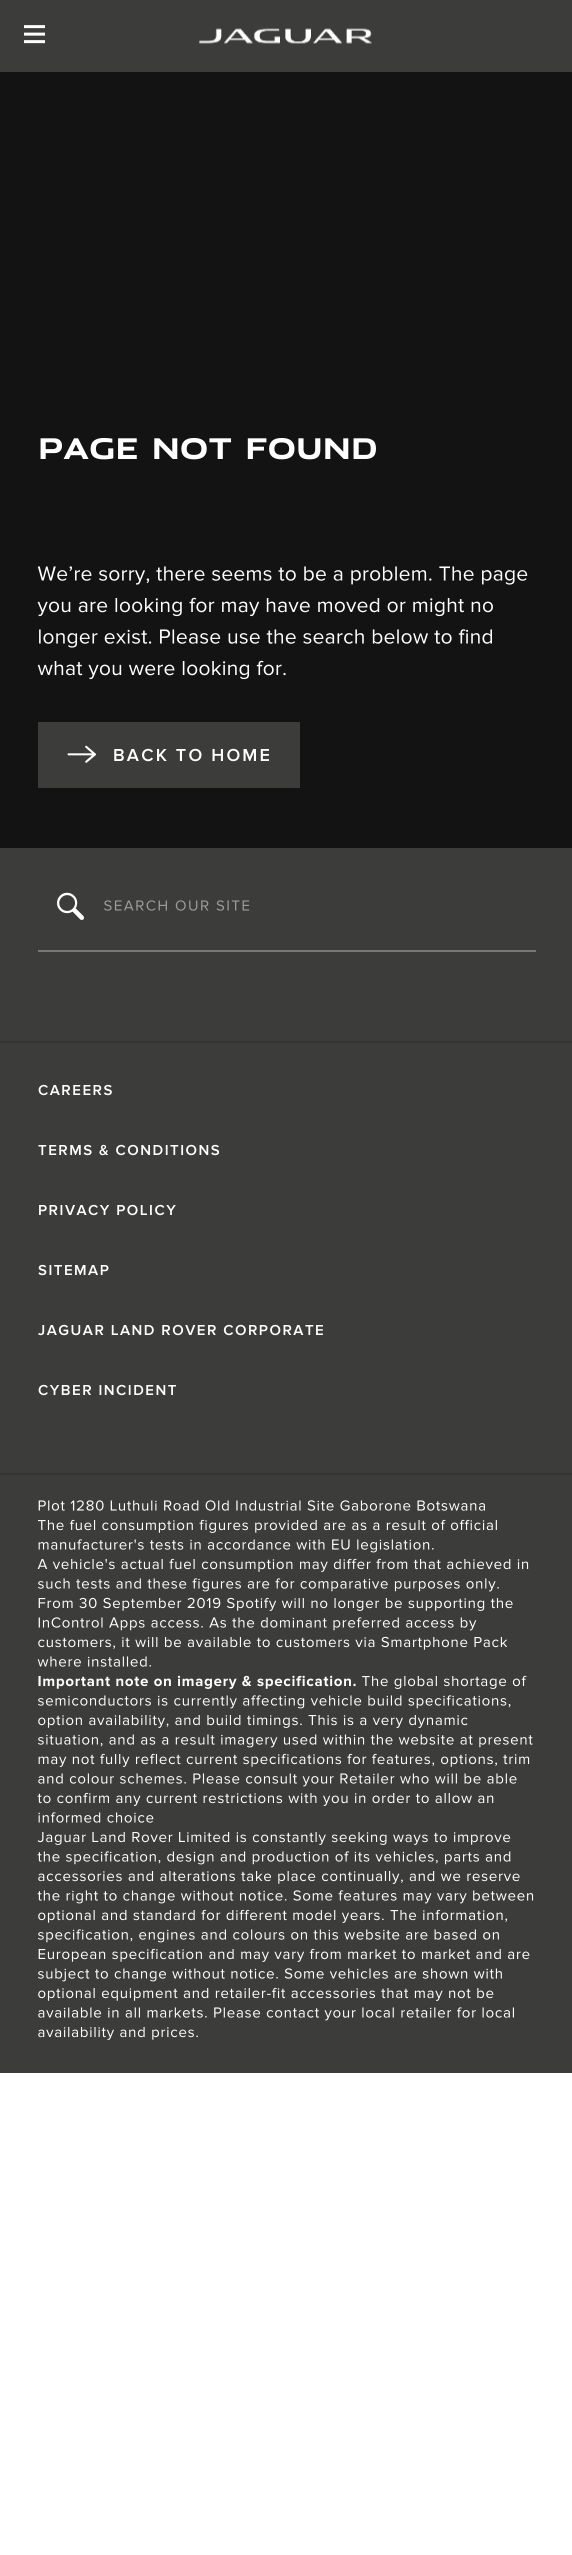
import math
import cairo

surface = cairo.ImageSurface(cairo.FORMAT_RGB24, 572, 2555)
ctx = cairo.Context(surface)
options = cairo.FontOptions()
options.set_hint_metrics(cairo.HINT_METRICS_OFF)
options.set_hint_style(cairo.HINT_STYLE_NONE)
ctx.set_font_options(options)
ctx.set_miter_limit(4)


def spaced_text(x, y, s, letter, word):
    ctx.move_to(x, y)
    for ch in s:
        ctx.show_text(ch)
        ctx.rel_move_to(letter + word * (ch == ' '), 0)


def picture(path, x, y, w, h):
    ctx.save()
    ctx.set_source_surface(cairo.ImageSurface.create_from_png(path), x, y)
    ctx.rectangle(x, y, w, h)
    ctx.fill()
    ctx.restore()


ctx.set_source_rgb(1, 1, 1)
ctx.paint()
ctx.set_source_rgb(0.235, 0.235, 0.231)
ctx.rectangle(0, 0, 572, 72)
ctx.fill()
picture("img1.png", 24, 25, 21, 19)
picture("img2.png", 199, 28, 173, 16)
ctx.set_source_rgb(0.078, 0.078, 0.078)
ctx.rectangle(0, 72, 572, 776)
ctx.fill()
ctx.select_font_face("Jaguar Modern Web", cairo.FONT_SLANT_NORMAL, cairo.FONT_WEIGHT_BOLD)
ctx.set_font_size(28.5)
ctx.set_source_rgb(1, 1, 1)
ctx.move_to(38, 459)
ctx.show_text("PAGE NOT FOUND")
picture("img3.png", 37, 566, 491, 19)
picture("img4.png", 37, 597, 456, 20)
picture("img5.png", 39, 629, 453, 19)
picture("img6.png", 37, 660, 249, 20)
ctx.set_source_rgb(0.235, 0.235, 0.231)
ctx.rectangle(38, 722, 262, 66)
ctx.fill()
picture("img7.png", 67, 745, 30, 18)
ctx.select_font_face("Proxima Nova SemiBold")
ctx.set_font_size(18)
ctx.set_source_rgb(1, 1, 1)
spaced_text(113, 761, "BACK TO HOME", 2.2, 0)
ctx.set_source_rgb(0.235, 0.235, 0.231)
ctx.rectangle(0, 848, 572, 1225)
ctx.fill()
picture("img8.png", 57, 892, 27, 28)
ctx.set_source_rgb(0.467, 0.467, 0.463)
ctx.rectangle(38, 950, 498, 2)
ctx.fill()
picture("img9.png", 104, 900, 146, 11)
ctx.set_source_rgb(0.208, 0.208, 0.204)
ctx.rectangle(0, 1041, 572, 2)
ctx.fill()
ctx.set_font_size(15)
ctx.set_source_rgb(1, 1, 1)
spaced_text(38, 1095, "CAREERS", 1.5, 0)
spaced_text(38, 1155, "TERMS & CONDITIONS", 1.5, 0)
spaced_text(38, 1215, "PRIVACY POLICY", 1.5, 0)
spaced_text(38, 1275, "SITEMAP", 1.5, 0)
spaced_text(38, 1335, "JAGUAR LAND ROVER CORPORATE", 1.5, 0)
spaced_text(38, 1395, "CYBER INCIDENT", 1.5, 0)
ctx.set_source_rgb(0.208, 0.208, 0.204)
ctx.rectangle(0, 1473, 572, 2)
ctx.fill()
picture("img10.png", 38, 1500, 447, 11)
picture("img11.png", 38, 1519, 459, 14)
picture("img12.png", 38, 1539, 396, 14)
picture("img13.png", 37, 1558, 492, 14)
picture("img14.png", 38, 1578, 461, 14)
picture("img15.png", 38, 1597, 475, 14)
picture("img16.png", 38, 1617, 439, 14)
picture("img17.png", 38, 1636, 470, 14)
picture("img18.png", 37, 1656, 114, 11)
picture("img19.png", 38, 1675, 318, 14)
picture("img20.png", 362, 1675, 165, 14)
picture("img21.png", 38, 1695, 473, 14)
picture("img22.png", 38, 1715, 430, 13)
picture("img23.png", 38, 1734, 495, 14)
picture("img24.png", 38, 1753, 492, 14)
picture("img25.png", 38, 1773, 479, 14)
picture("img26.png", 37, 1792, 457, 14)
picture("img27.png", 38, 1812, 116, 11)
picture("img28.png", 37, 1832, 474, 13)
picture("img29.png", 37, 1851, 474, 14)
picture("img30.png", 38, 1871, 482, 13)
picture("img31.png", 37, 1890, 497, 14)
picture("img32.png", 38, 1909, 470, 14)
picture("img33.png", 38, 1929, 461, 14)
picture("img34.png", 38, 1948, 492, 14)
picture("img35.png", 38, 1968, 464, 14)
picture("img36.png", 38, 1987, 456, 14)
picture("img37.png", 38, 2007, 476, 14)
picture("img38.png", 38, 2027, 160, 13)
surface.write_to_png("page.png")
